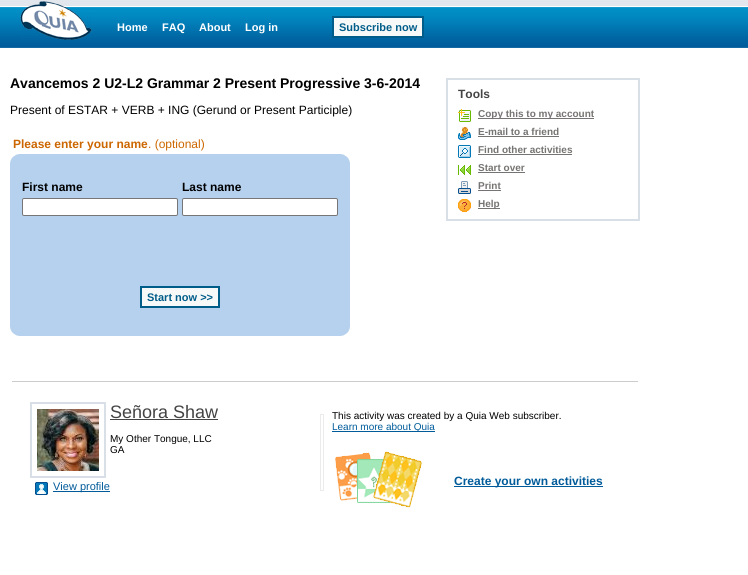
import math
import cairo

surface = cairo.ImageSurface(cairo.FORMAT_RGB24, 748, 575)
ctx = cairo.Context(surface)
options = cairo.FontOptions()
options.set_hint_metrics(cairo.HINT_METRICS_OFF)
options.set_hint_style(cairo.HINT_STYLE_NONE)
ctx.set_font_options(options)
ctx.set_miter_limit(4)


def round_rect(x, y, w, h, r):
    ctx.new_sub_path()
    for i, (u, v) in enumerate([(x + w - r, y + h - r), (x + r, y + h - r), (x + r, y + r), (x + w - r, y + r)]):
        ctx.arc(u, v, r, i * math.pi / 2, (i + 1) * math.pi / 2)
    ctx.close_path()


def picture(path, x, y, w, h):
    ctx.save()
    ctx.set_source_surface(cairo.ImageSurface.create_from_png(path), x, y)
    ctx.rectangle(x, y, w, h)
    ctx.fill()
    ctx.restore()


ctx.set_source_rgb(1, 1, 1)
ctx.paint()
picture("img1.png", 0, 0, 748, 48)
picture("img2.png", 20, 1, 72, 39)
ctx.select_font_face("Liberation Sans", cairo.FONT_SLANT_NORMAL, cairo.FONT_WEIGHT_BOLD)
ctx.set_font_size(11)
ctx.set_source_rgb(1, 1, 1)
ctx.move_to(117, 31)
ctx.show_text("Home")
ctx.move_to(162, 31)
ctx.show_text("FAQ")
ctx.move_to(199, 31)
ctx.show_text("About")
ctx.move_to(245, 31)
ctx.show_text("Log in")
ctx.set_source_rgb(0.965, 0.973, 0.976)
ctx.rectangle(333, 17, 90, 20)
ctx.fill_preserve()
ctx.set_source_rgb(0, 0.365, 0.537)
ctx.stroke()
ctx.move_to(339, 31)
ctx.show_text("Subscribe now")
ctx.set_font_size(14)
ctx.set_source_rgb(0, 0, 0)
ctx.move_to(10, 88)
ctx.show_text("Avancemos 2 U2-L2 Grammar 2 Present Progressive 3-6-2014")
ctx.select_font_face("Liberation Sans")
ctx.set_font_size(12)
ctx.move_to(10, 114)
ctx.show_text("Present of ESTAR + VERB + ING (Gerund or Present Participle)")
ctx.select_font_face("Liberation Sans", cairo.FONT_SLANT_NORMAL, cairo.FONT_WEIGHT_BOLD)
ctx.set_source_rgb(0.8, 0.4, 0)
ctx.move_to(13, 148)
ctx.show_text("Please enter your name")
ctx.select_font_face("Liberation Sans")
ctx.move_to(148, 148)
ctx.show_text(". (optional)")
ctx.set_source_rgb(0.714, 0.82, 0.933)
ctx.rectangle(10, 154, 340, 182)
ctx.fill()
picture("img3.png", 10, 154, 9, 9)
picture("img4.png", 341, 154, 9, 9)
ctx.select_font_face("Liberation Sans", cairo.FONT_SLANT_NORMAL, cairo.FONT_WEIGHT_BOLD)
ctx.set_source_rgb(0, 0, 0)
ctx.move_to(22, 191)
ctx.show_text("First name")
ctx.move_to(182, 191)
ctx.show_text("Last name")
ctx.set_source_rgb(1, 1, 1)
round_rect(22.5, 198.5, 155, 17, 1.5)
ctx.fill_preserve()
ctx.set_source_rgb(0.463, 0.463, 0.463)
ctx.set_line_width(1)
ctx.stroke()
ctx.set_source_rgb(1, 1, 1)
round_rect(182.5, 198.5, 155, 17, 1.5)
ctx.fill_preserve()
ctx.set_source_rgb(0.463, 0.463, 0.463)
ctx.stroke()
ctx.set_source_rgb(0.965, 0.973, 0.976)
ctx.rectangle(141, 287, 78, 20)
ctx.fill_preserve()
ctx.set_source_rgb(0, 0.365, 0.537)
ctx.set_line_width(2)
ctx.stroke()
ctx.set_font_size(11)
ctx.move_to(147, 301)
ctx.show_text("Start now >>")
picture("img5.png", 10, 327, 9, 9)
picture("img6.png", 341, 327, 9, 9)
ctx.rectangle(447, 79, 192, 141)
ctx.set_source_rgb(0.847, 0.875, 0.902)
ctx.stroke()
ctx.set_font_size(12)
ctx.set_source_rgb(0.267, 0.267, 0.267)
ctx.move_to(458, 98)
ctx.show_text("Tools")
picture("img7.png", 458, 109, 13, 13)
ctx.set_source_rgb(0.463, 0.455, 0.447)
ctx.rectangle(478, 118, 116, 1)
ctx.fill()
ctx.set_font_size(10)
ctx.move_to(478, 117)
ctx.show_text("Copy this to my account")
picture("img8.png", 458, 127, 13, 13)
ctx.move_to(478, 135)
ctx.show_text("E-mail to a friend")
ctx.rectangle(478, 136, 81, 1)
ctx.fill()
picture("img9.png", 458, 145, 13, 13)
ctx.move_to(478, 153)
ctx.show_text("Find other activities")
ctx.rectangle(478, 154, 94, 1)
ctx.fill()
picture("img10.png", 458, 165, 13, 10)
ctx.move_to(478, 171)
ctx.show_text("Start over")
ctx.rectangle(478, 172, 47, 1)
ctx.fill()
picture("img11.png", 458, 181, 13, 13)
ctx.move_to(478, 189)
ctx.show_text("Print")
ctx.rectangle(478, 190, 23, 1)
ctx.fill()
picture("img12.png", 458, 199, 13, 13)
ctx.rectangle(478, 208, 22, 1)
ctx.fill()
ctx.move_to(478, 207)
ctx.show_text("Help")
ctx.set_source_rgb(0.8, 0.8, 0.8)
ctx.rectangle(12, 381, 626, 1)
ctx.fill()
ctx.rectangle(31, 403, 74, 74)
ctx.set_source_rgb(0.847, 0.875, 0.902)
ctx.stroke()
picture("img13.png", 37, 409, 62, 62)
ctx.select_font_face("Liberation Sans")
ctx.set_font_size(18)
ctx.set_source_rgb(0.267, 0.267, 0.267)
ctx.move_to(110, 418)
ctx.show_text("Señora Shaw")
ctx.rectangle(110, 419, 108, 1)
ctx.fill()
ctx.set_font_size(10)
ctx.set_source_rgb(0, 0, 0)
ctx.move_to(110, 442)
ctx.show_text("My Other Tongue, LLC")
ctx.move_to(110, 453)
ctx.show_text("GA")
picture("img14.png", 35, 482, 13, 13)
ctx.set_source_rgb(0, 0.357, 0.604)
ctx.rectangle(53, 491, 57, 1)
ctx.fill()
ctx.set_font_size(11)
ctx.move_to(53, 490)
ctx.show_text("View profile")
ctx.rectangle(320.5, 414.5, 3, 76)
ctx.set_source_rgb(0.918, 0.918, 0.918)
ctx.set_line_width(1)
ctx.stroke()
ctx.set_font_size(10)
ctx.set_source_rgb(0, 0, 0)
ctx.move_to(332, 419)
ctx.show_text("This activity was created by a Quia Web subscriber.")
ctx.set_source_rgb(0, 0.357, 0.604)
ctx.rectangle(332, 431, 103, 1)
ctx.fill()
ctx.move_to(332, 430)
ctx.show_text("Learn more about Quia")
picture("img15.png", 335, 451, 87, 57)
ctx.rectangle(454, 486, 149, 1)
ctx.fill()
ctx.select_font_face("Liberation Sans", cairo.FONT_SLANT_NORMAL, cairo.FONT_WEIGHT_BOLD)
ctx.set_font_size(12)
ctx.move_to(454, 485)
ctx.show_text("Create your own activities")
surface.write_to_png("page.png")
